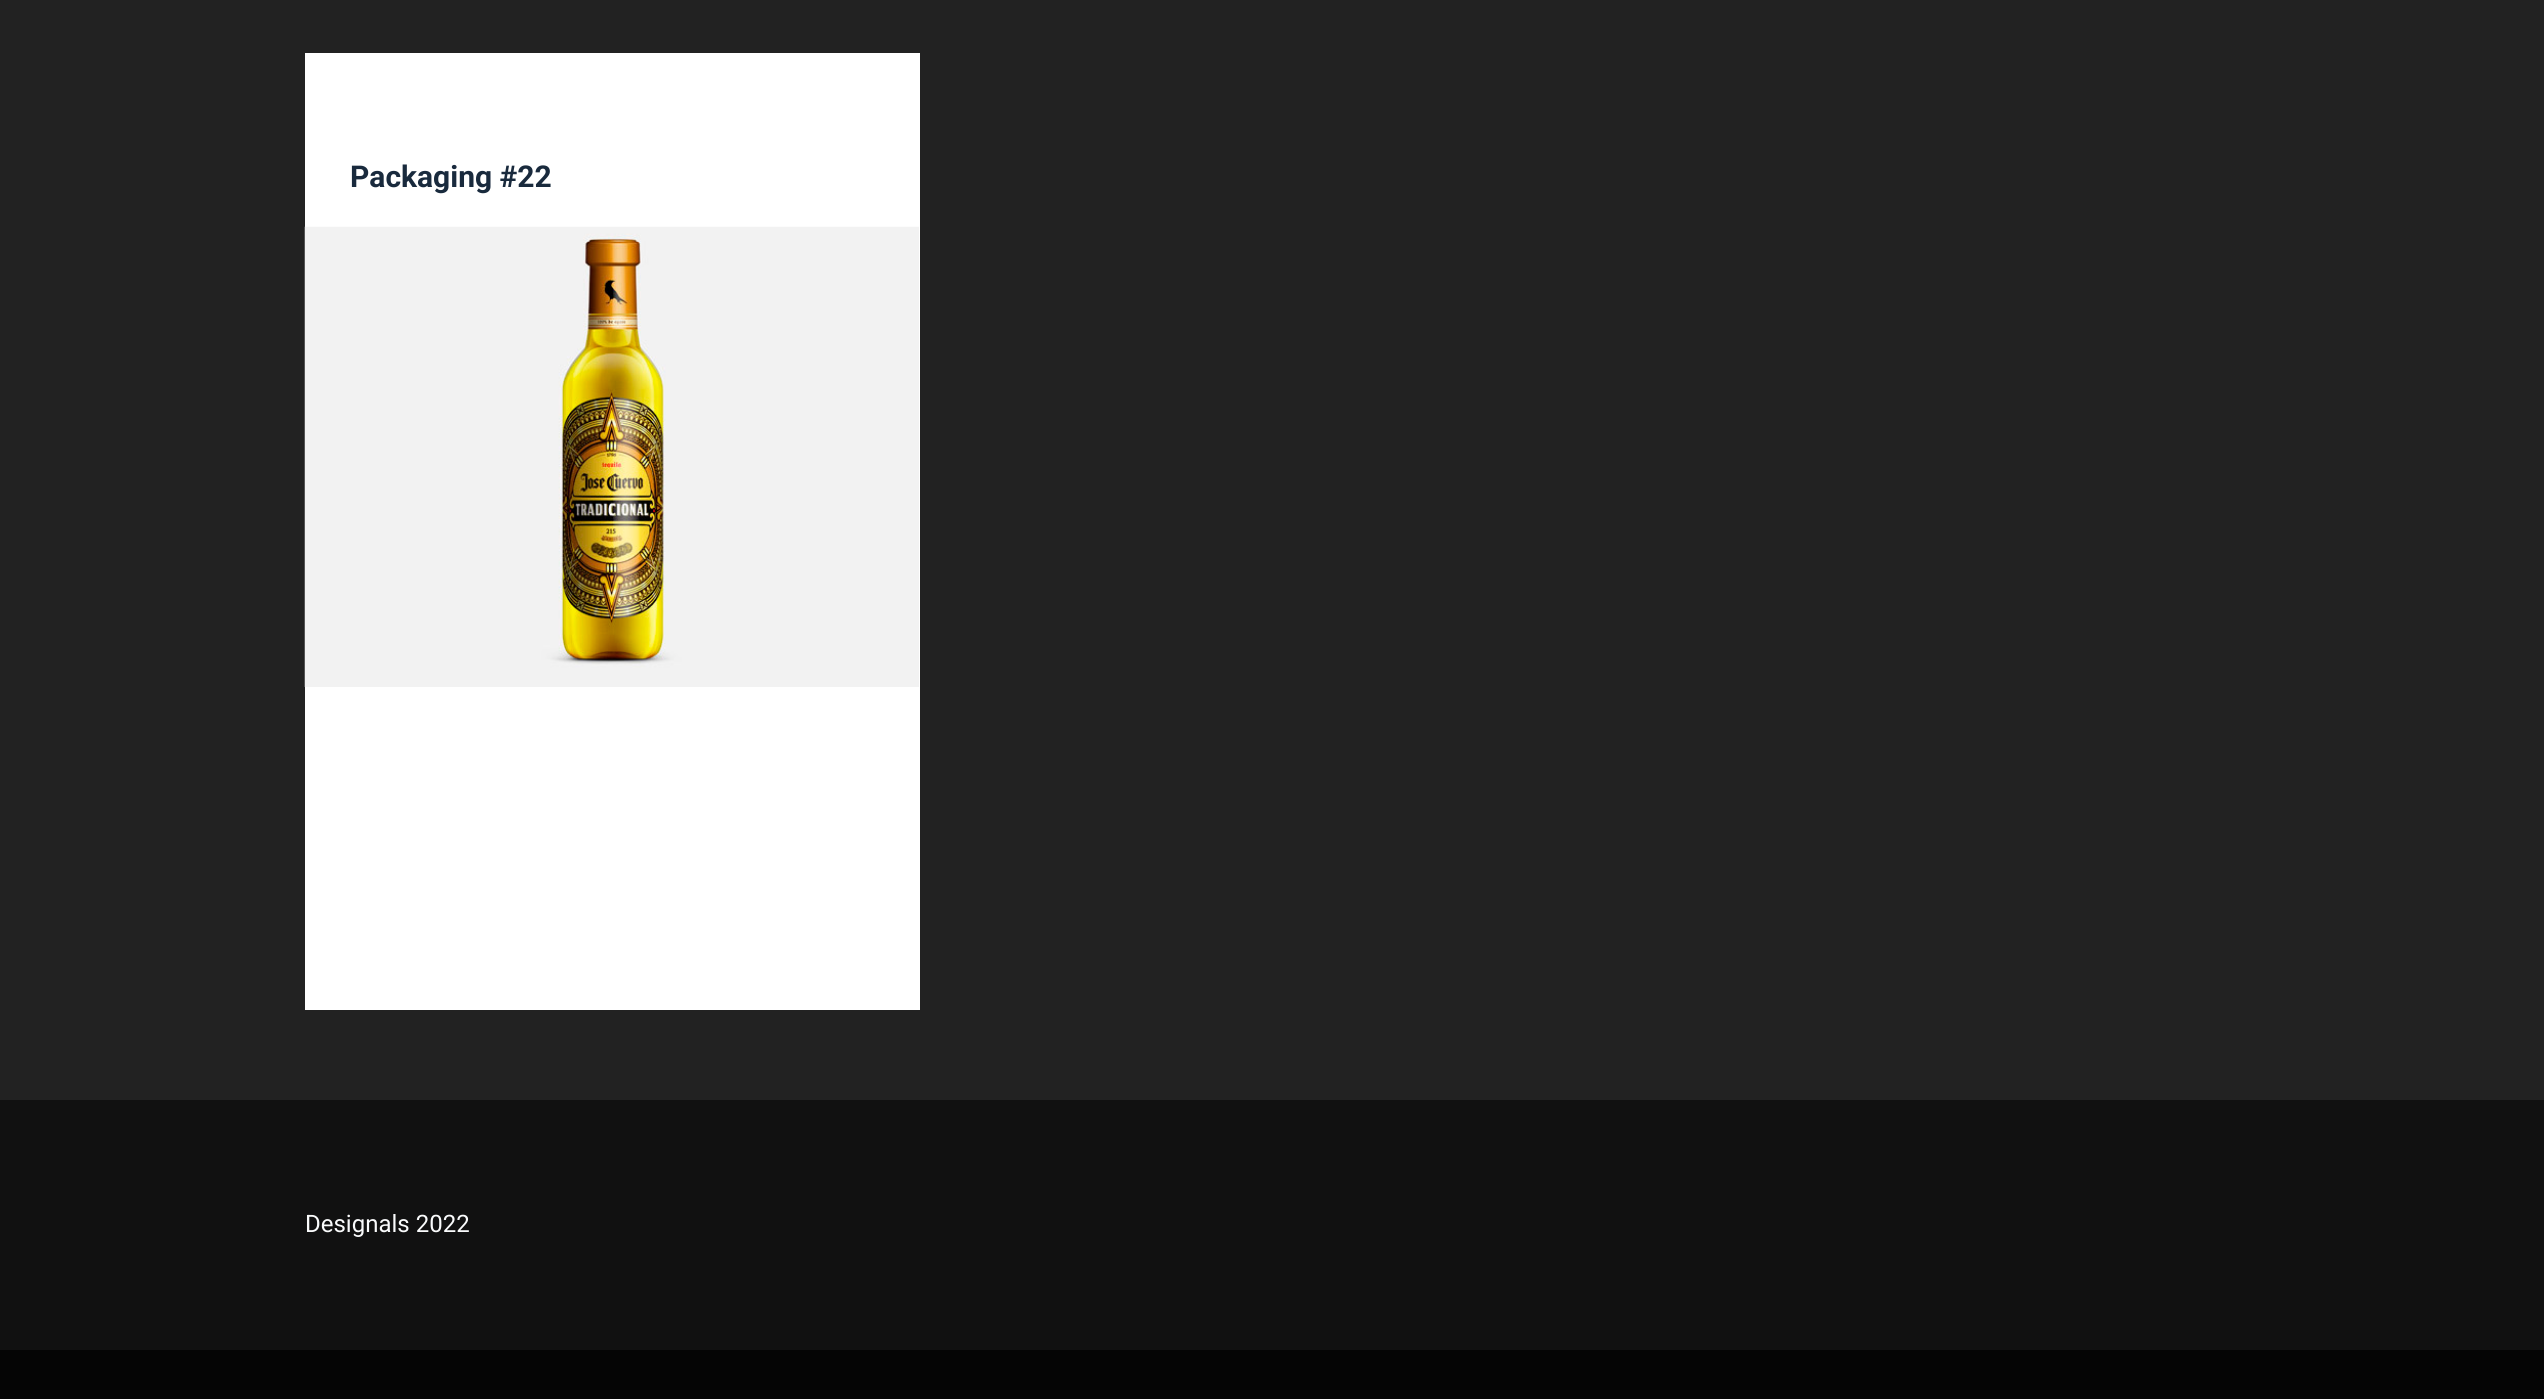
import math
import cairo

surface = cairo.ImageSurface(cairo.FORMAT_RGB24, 2544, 1399)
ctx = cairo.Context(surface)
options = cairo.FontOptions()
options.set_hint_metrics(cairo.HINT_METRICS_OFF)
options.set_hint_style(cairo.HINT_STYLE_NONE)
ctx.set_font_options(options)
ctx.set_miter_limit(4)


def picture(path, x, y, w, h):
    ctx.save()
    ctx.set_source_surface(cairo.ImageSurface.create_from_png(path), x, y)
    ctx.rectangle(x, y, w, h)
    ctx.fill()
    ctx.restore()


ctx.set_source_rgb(0.133, 0.133, 0.133)
ctx.paint()
ctx.set_source_rgb(1, 1, 1)
ctx.rectangle(305, 53, 615, 957)
ctx.fill()
ctx.select_font_face("Roboto", cairo.FONT_SLANT_NORMAL, cairo.FONT_WEIGHT_BOLD)
ctx.set_font_size(30)
ctx.set_source_rgb(0.098, 0.165, 0.239)
ctx.move_to(350, 187)
ctx.show_text("Packaging #22")
picture("img1.png", 304, 226, 615, 461)
ctx.set_source_rgb(0.067, 0.067, 0.067)
ctx.rectangle(0, 1100, 2544, 250)
ctx.fill()
ctx.select_font_face("Roboto")
ctx.set_font_size(24)
ctx.set_source_rgb(0.98, 0.984, 0.988)
ctx.move_to(305, 1232)
ctx.show_text("Designals 2022")
ctx.set_source_rgb(0.02, 0.02, 0.02)
ctx.rectangle(0, 1350, 2544, 49)
ctx.fill()
surface.write_to_png("page.png")
